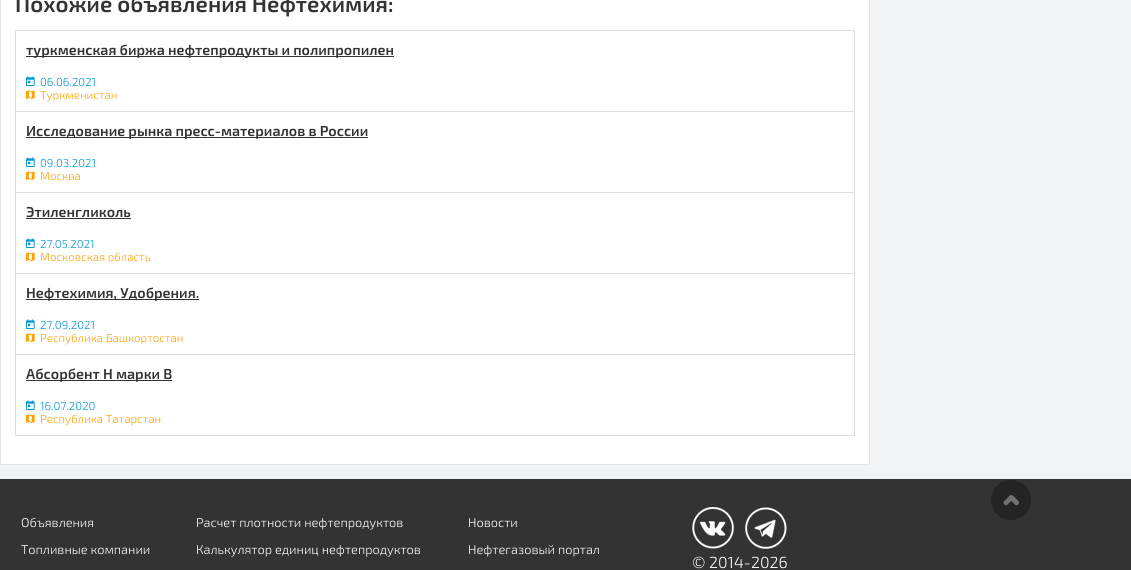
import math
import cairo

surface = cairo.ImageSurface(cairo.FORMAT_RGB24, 1131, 570)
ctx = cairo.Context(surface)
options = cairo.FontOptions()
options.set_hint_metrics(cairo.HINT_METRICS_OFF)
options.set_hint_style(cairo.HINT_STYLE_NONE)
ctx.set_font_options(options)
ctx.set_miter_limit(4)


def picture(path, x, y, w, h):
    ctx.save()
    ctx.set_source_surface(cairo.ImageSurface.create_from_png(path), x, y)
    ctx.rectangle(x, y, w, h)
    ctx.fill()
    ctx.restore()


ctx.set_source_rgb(0.949, 0.953, 0.957)
ctx.paint()
ctx.set_source_rgb(1, 1, 1)
ctx.rectangle(0.5, -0.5, 869, 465)
ctx.fill_preserve()
ctx.set_source_rgb(0.902, 0.902, 0.902)
ctx.set_line_width(1)
ctx.stroke()
ctx.select_font_face("Exo 2 SemiBold")
ctx.set_font_size(22.4)
ctx.set_source_rgb(0.2, 0.2, 0.2)
ctx.move_to(15, 12)
ctx.show_text("Похожие объявления Нефтехимия:")
ctx.set_source_rgb(0.867, 0.867, 0.867)
ctx.rectangle(15, 30, 840, 1)
ctx.fill()
ctx.rectangle(15, 111, 840, 1)
ctx.fill()
ctx.rectangle(15, 192, 840, 1)
ctx.fill()
ctx.rectangle(15, 273, 840, 1)
ctx.fill()
ctx.rectangle(15, 354, 840, 1)
ctx.fill()
ctx.rectangle(854, 354, 1, 82)
ctx.fill()
ctx.rectangle(854, 273, 1, 82)
ctx.fill()
ctx.rectangle(854, 192, 1, 82)
ctx.fill()
ctx.rectangle(854, 111, 1, 82)
ctx.fill()
ctx.rectangle(854, 30, 1, 82)
ctx.fill()
ctx.rectangle(15, 435, 840, 1)
ctx.fill()
ctx.rectangle(15, 354, 1, 82)
ctx.fill()
ctx.rectangle(15, 273, 1, 82)
ctx.fill()
ctx.rectangle(15, 192, 1, 82)
ctx.fill()
ctx.rectangle(15, 111, 1, 82)
ctx.fill()
ctx.rectangle(15, 30, 1, 82)
ctx.fill()
ctx.set_source_rgb(0.2, 0.2, 0.2)
ctx.rectangle(26, 56, 368, 1)
ctx.fill()
ctx.set_font_size(14.4)
ctx.move_to(26, 55)
ctx.show_text("туркменская биржа нефтепродукты и полипропилен")
picture("img1.png", 26, 76, 9, 10)
ctx.select_font_face("Exo 2 Light")
ctx.set_font_size(11.5)
ctx.set_source_rgb(0.008, 0.6, 0.824)
ctx.move_to(40, 86)
ctx.show_text("06.06.2021")
picture("img2.png", 26, 90, 9, 9)
ctx.set_source_rgb(0.996, 0.631, 0)
ctx.move_to(40, 99)
ctx.show_text("Туркменистан")
ctx.set_source_rgb(0.2, 0.2, 0.2)
ctx.rectangle(26, 137, 342, 1)
ctx.fill()
ctx.select_font_face("Exo 2 SemiBold")
ctx.set_font_size(14.4)
ctx.move_to(26, 136)
ctx.show_text("Исследование рынка пресс-материалов в России")
picture("img1.png", 26, 157, 9, 10)
ctx.select_font_face("Exo 2 Light")
ctx.set_font_size(11.5)
ctx.set_source_rgb(0.008, 0.6, 0.824)
ctx.move_to(40, 167)
ctx.show_text("09.03.2021")
picture("img2.png", 26, 171, 9, 9)
ctx.set_source_rgb(0.996, 0.631, 0)
ctx.move_to(40, 180)
ctx.show_text("Москва")
ctx.select_font_face("Exo 2 SemiBold")
ctx.set_font_size(14.4)
ctx.set_source_rgb(0.2, 0.2, 0.2)
ctx.move_to(26, 217)
ctx.show_text("Этиленгликоль")
ctx.rectangle(26, 218, 105, 1)
ctx.fill()
picture("img1.png", 26, 238, 9, 10)
ctx.select_font_face("Exo 2 Light")
ctx.set_font_size(11.5)
ctx.set_source_rgb(0.008, 0.6, 0.824)
ctx.move_to(40, 248)
ctx.show_text("27.05.2021")
picture("img2.png", 26, 252, 9, 9)
ctx.set_source_rgb(0.996, 0.631, 0)
ctx.move_to(40, 261)
ctx.show_text("Московская область")
ctx.set_source_rgb(0.2, 0.2, 0.2)
ctx.rectangle(26, 299, 173, 1)
ctx.fill()
ctx.select_font_face("Exo 2 SemiBold")
ctx.set_font_size(14.4)
ctx.move_to(26, 298)
ctx.show_text("Нефтехимия, Удобрения.")
picture("img1.png", 26, 319, 9, 10)
ctx.select_font_face("Exo 2 Light")
ctx.set_font_size(11.5)
ctx.set_source_rgb(0.008, 0.6, 0.824)
ctx.move_to(40, 329)
ctx.show_text("27.09.2021")
picture("img2.png", 26, 333, 9, 9)
ctx.set_source_rgb(0.996, 0.631, 0)
ctx.move_to(40, 342)
ctx.show_text("Республика Башкортостан")
ctx.set_source_rgb(0.2, 0.2, 0.2)
ctx.rectangle(26, 380, 146, 1)
ctx.fill()
ctx.select_font_face("Exo 2 SemiBold")
ctx.set_font_size(14.4)
ctx.move_to(26, 379)
ctx.show_text("Абсорбент Н марки В")
picture("img1.png", 26, 400, 9, 10)
ctx.select_font_face("Exo 2 Light")
ctx.set_font_size(11.5)
ctx.set_source_rgb(0.008, 0.6, 0.824)
ctx.move_to(40, 410)
ctx.show_text("16.07.2020")
picture("img2.png", 26, 414, 9, 9)
ctx.set_source_rgb(0.996, 0.631, 0)
ctx.move_to(40, 423)
ctx.show_text("Республика Татарстан")
ctx.set_source_rgb(0.2, 0.2, 0.2)
ctx.rectangle(0, 479, 1131, 91)
ctx.fill()
picture("img3.png", 991, 480, 40, 40)
ctx.set_font_size(12.75)
ctx.set_source_rgb(1, 1, 1)
ctx.move_to(21, 527)
ctx.show_text("Объявления")
ctx.move_to(21, 554)
ctx.show_text("Топливные компании")
ctx.move_to(196, 527)
ctx.show_text("Расчет плотности нефтепродуктов")
ctx.move_to(196, 554)
ctx.show_text("Калькулятор единиц нефтепродуктов")
ctx.move_to(468, 527)
ctx.show_text("Новости")
ctx.move_to(468, 554)
ctx.show_text("Нефтегазовый портал")
picture("img4.png", 692, 507, 42, 42)
picture("img5.png", 745, 507, 42, 42)
ctx.set_font_size(16)
ctx.move_to(692, 568)
ctx.show_text("© 2014-2026")
surface.write_to_png("page.png")
